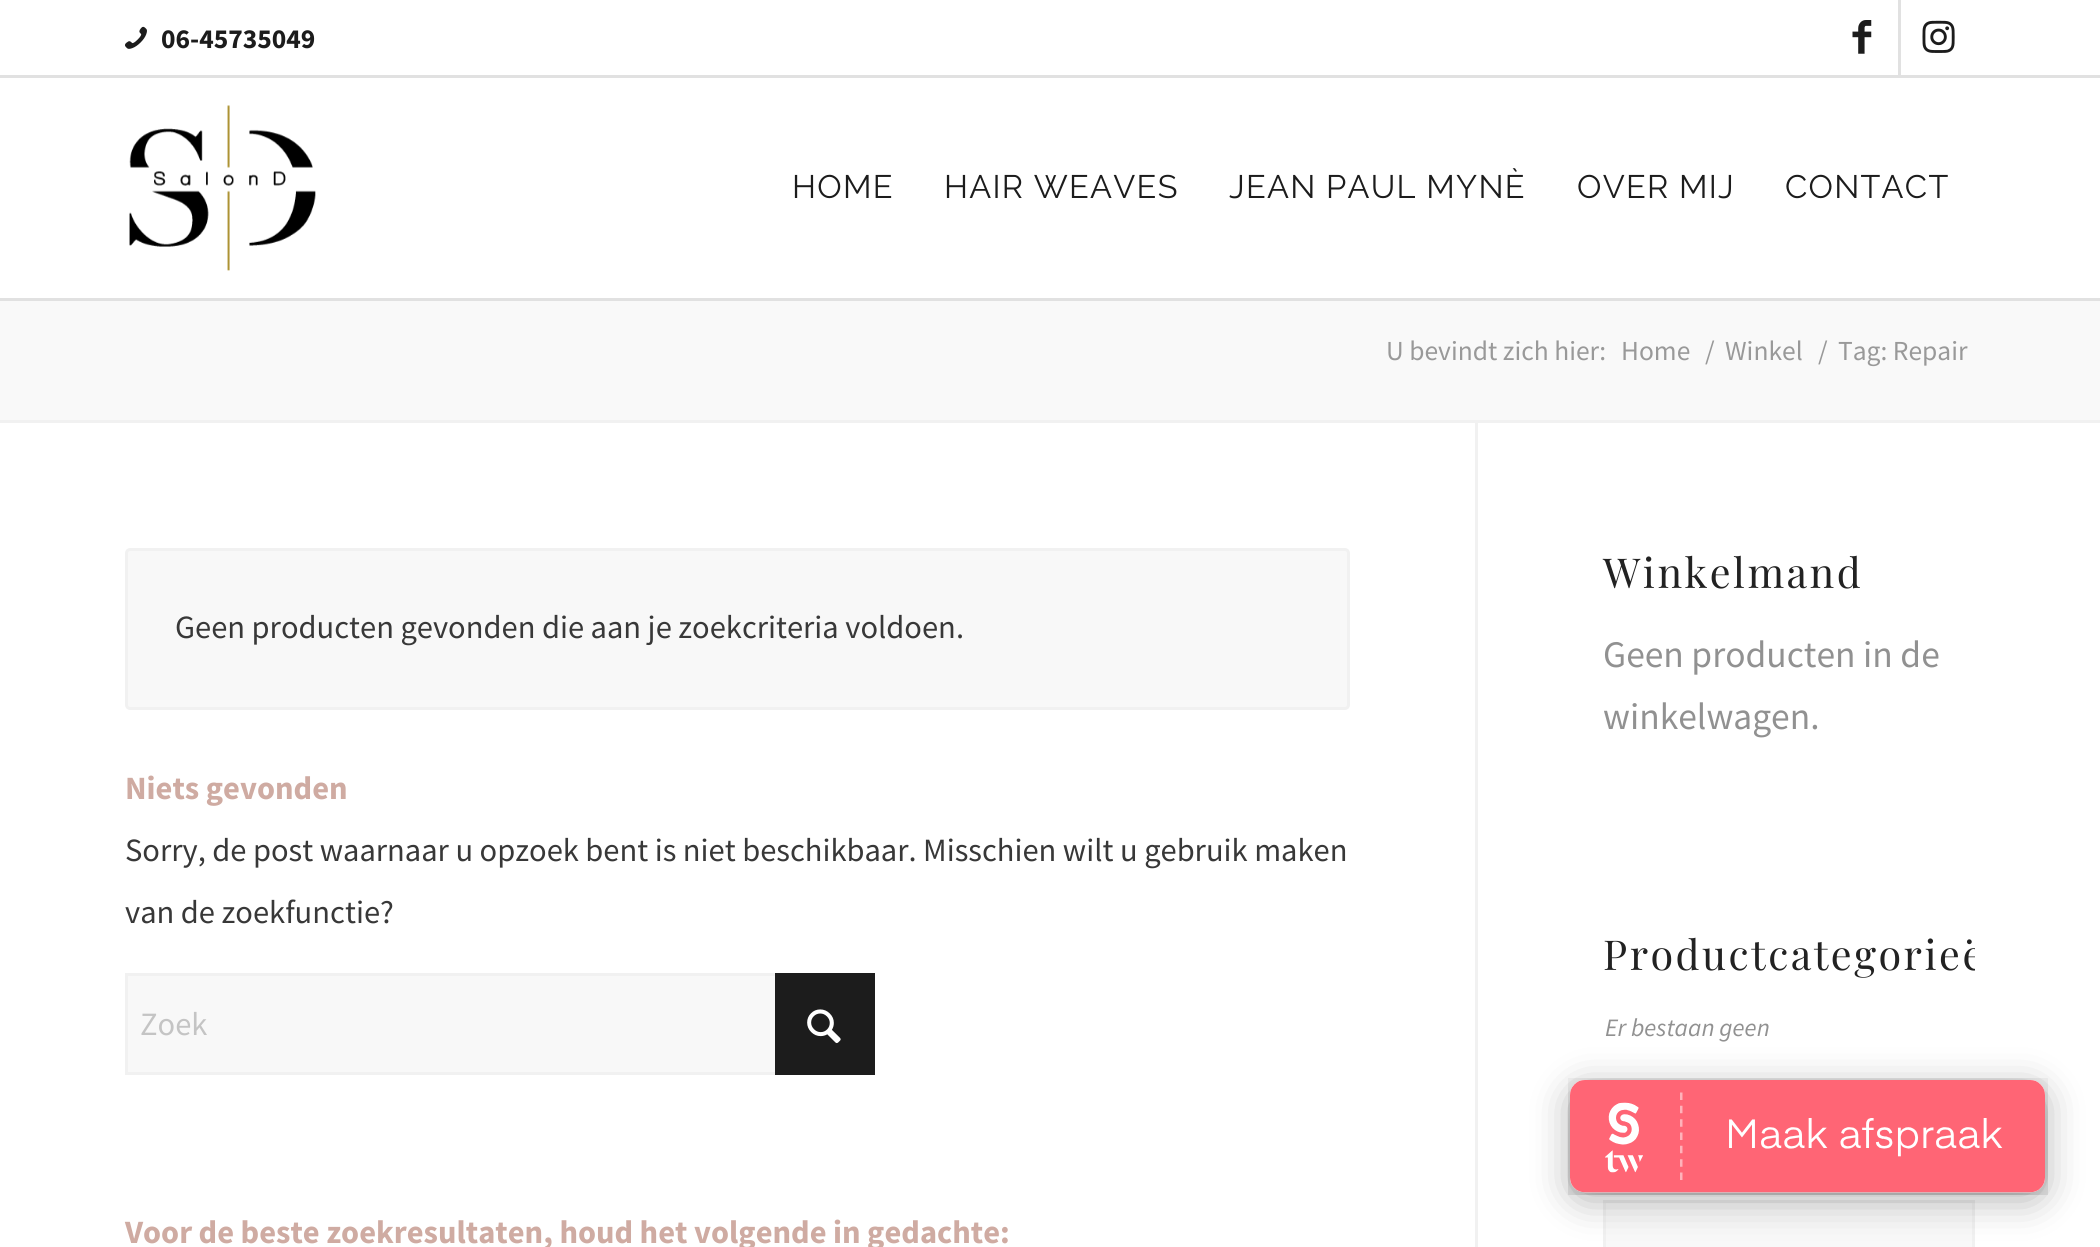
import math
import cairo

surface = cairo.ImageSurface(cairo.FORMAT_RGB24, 2100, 1247)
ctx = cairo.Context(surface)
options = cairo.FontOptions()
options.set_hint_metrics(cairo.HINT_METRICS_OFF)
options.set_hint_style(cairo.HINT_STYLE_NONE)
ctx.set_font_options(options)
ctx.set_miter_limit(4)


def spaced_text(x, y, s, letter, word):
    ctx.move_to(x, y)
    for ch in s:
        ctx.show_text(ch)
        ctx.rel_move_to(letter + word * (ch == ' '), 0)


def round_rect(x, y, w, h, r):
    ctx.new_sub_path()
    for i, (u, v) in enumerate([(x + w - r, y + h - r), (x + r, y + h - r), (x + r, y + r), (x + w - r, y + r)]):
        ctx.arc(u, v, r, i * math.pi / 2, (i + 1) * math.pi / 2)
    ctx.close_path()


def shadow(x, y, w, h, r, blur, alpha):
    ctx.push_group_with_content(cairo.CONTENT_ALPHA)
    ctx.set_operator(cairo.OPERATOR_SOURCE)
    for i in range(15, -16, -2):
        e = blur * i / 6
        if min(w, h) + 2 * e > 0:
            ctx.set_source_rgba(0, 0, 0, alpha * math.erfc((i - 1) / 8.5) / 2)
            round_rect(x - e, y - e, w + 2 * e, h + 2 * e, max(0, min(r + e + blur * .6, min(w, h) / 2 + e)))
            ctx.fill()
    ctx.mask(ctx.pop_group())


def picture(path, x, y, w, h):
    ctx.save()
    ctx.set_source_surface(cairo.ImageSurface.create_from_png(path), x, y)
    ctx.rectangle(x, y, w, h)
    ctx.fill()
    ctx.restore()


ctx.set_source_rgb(1, 1, 1)
ctx.paint()
ctx.set_source_rgb(0.882, 0.882, 0.882)
ctx.rectangle(0, 75, 2100, 3)
ctx.fill()
picture("img1.png", 125, 26, 22, 23)
ctx.select_font_face("Source Sans Pro", cairo.FONT_SLANT_NORMAL, cairo.FONT_WEIGHT_BOLD)
ctx.set_font_size(27.5)
ctx.set_source_rgb(0.11, 0.11, 0.11)
ctx.move_to(161, 48)
ctx.show_text("06-45735049")
ctx.set_source_rgb(0.882, 0.882, 0.882)
ctx.rectangle(1898, 0, 3, 75)
ctx.fill()
picture("img2.png", 1852, 20, 20, 34)
picture("img3.png", 1922, 20, 33, 33)
ctx.rectangle(0, 298, 2100, 3)
ctx.fill()
picture("img4.png", 129, 105, 187, 166)
ctx.select_font_face("Raleway")
ctx.set_font_size(32.5)
ctx.set_source_rgb(0.11, 0.11, 0.11)
spaced_text(792, 198, "HOME", 1.25, 0)
spaced_text(944, 198, "HAIR WEAVES", 1.25, 0)
spaced_text(1229, 198, "JEAN PAUL MYNÈ", 1.25, 0)
spaced_text(1577, 198, "OVER MIJ", 1.25, 0)
spaced_text(1785, 198, "CONTACT", 1.25, 0)
ctx.set_source_rgb(0.973, 0.973, 0.973)
ctx.rectangle(0, 301, 2100, 119)
ctx.fill()
ctx.select_font_face("Source Sans Pro")
ctx.set_font_size(27.5)
ctx.set_source_rgb(0.6, 0.6, 0.6)
ctx.move_to(1386, 360)
ctx.show_text("U bevindt zich hier:")
ctx.move_to(1621, 360)
ctx.show_text("Home")
ctx.move_to(1705, 360)
ctx.show_text("/")
ctx.move_to(1725, 360)
ctx.show_text("Winkel")
ctx.move_to(1818, 360)
ctx.show_text("/")
ctx.move_to(1838, 360)
ctx.show_text("Tag: Repair")
ctx.set_source_rgb(0.945, 0.945, 0.945)
ctx.rectangle(0, 420, 2100, 3)
ctx.fill()
ctx.rectangle(1475, 423, 3, 824)
ctx.fill()
ctx.set_source_rgb(0.969, 0.969, 0.969)
round_rect(126.5, 549.5, 1222, 159, 3.5)
ctx.fill_preserve()
ctx.set_source_rgb(0.945, 0.945, 0.945)
ctx.set_line_width(3)
ctx.stroke()
ctx.set_font_size(32.5)
ctx.set_source_rgb(0.22, 0.22, 0.22)
ctx.move_to(175, 638)
ctx.show_text("Geen producten gevonden die aan je zoekcriteria voldoen.")
ctx.select_font_face("Source Sans Pro", cairo.FONT_SLANT_NORMAL, cairo.FONT_WEIGHT_BOLD)
ctx.set_source_rgb(0.812, 0.671, 0.635)
ctx.move_to(125, 799)
ctx.show_text("Niets gevonden")
ctx.select_font_face("Source Sans Pro")
ctx.set_source_rgb(0.22, 0.22, 0.22)
ctx.move_to(125, 861)
ctx.show_text("Sorry, de post waarnaar u opzoek bent is niet beschikbaar. Misschien wilt u gebruik maken")
ctx.move_to(125, 923)
ctx.show_text("van de zoekfunctie?")
ctx.set_source_rgb(0.969, 0.969, 0.969)
ctx.rectangle(128, 976, 647, 96)
ctx.fill()
ctx.rectangle(126.5, 974.5, 747, 99)
ctx.set_source_rgb(0.945, 0.945, 0.945)
ctx.stroke()
ctx.set_source_rgb(0.11, 0.11, 0.11)
ctx.rectangle(775, 973, 100, 102)
ctx.fill()
ctx.set_source_rgb(0.769, 0.769, 0.769)
ctx.move_to(140, 1035)
ctx.show_text("Zoek")
picture("img5.png", 807, 1009, 34, 35)
ctx.select_font_face("Source Sans Pro", cairo.FONT_SLANT_NORMAL, cairo.FONT_WEIGHT_BOLD)
ctx.set_source_rgb(0.812, 0.671, 0.635)
ctx.move_to(125, 1243)
ctx.show_text("Voor de beste zoekresultaten, houd het volgende in gedachte:")
ctx.select_font_face("Playfair Display")
ctx.set_font_size(41.25)
ctx.set_source_rgb(0.133, 0.133, 0.133)
spaced_text(1603, 588, "Winkelmand", 2.5, 0)
ctx.select_font_face("Source Sans Pro")
ctx.set_font_size(37.5)
ctx.set_source_rgb(0.569, 0.569, 0.569)
ctx.move_to(1603, 667)
ctx.show_text("Geen producten in de")
ctx.move_to(1603, 729)
ctx.show_text("winkelwagen.")
ctx.save()
ctx.rectangle(1478, 423, 497, 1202)
ctx.clip()
ctx.select_font_face("Playfair Display")
ctx.set_font_size(41.25)
ctx.set_source_rgb(0.133, 0.133, 0.133)
spaced_text(1603, 970, "Productcategorieë", 2.5, 0)
ctx.restore()
ctx.select_font_face("Source Sans Pro", cairo.FONT_SLANT_ITALIC)
ctx.set_font_size(25)
ctx.move_to(1605, 1036)
ctx.show_text("Er bestaan geen")
ctx.set_source_rgb(0.969, 0.969, 0.969)
ctx.rectangle(1604.5, 1201.5, 369, 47)
ctx.fill_preserve()
ctx.set_source_rgb(0.945, 0.945, 0.945)
ctx.stroke()
ctx.set_source_rgb(0, 0, 0)
shadow(1570, 1088, 475, 112, 15, 19, 0.3)
picture("img6.png", 1568, 1078, 480, 117)
surface.write_to_png("page.png")
